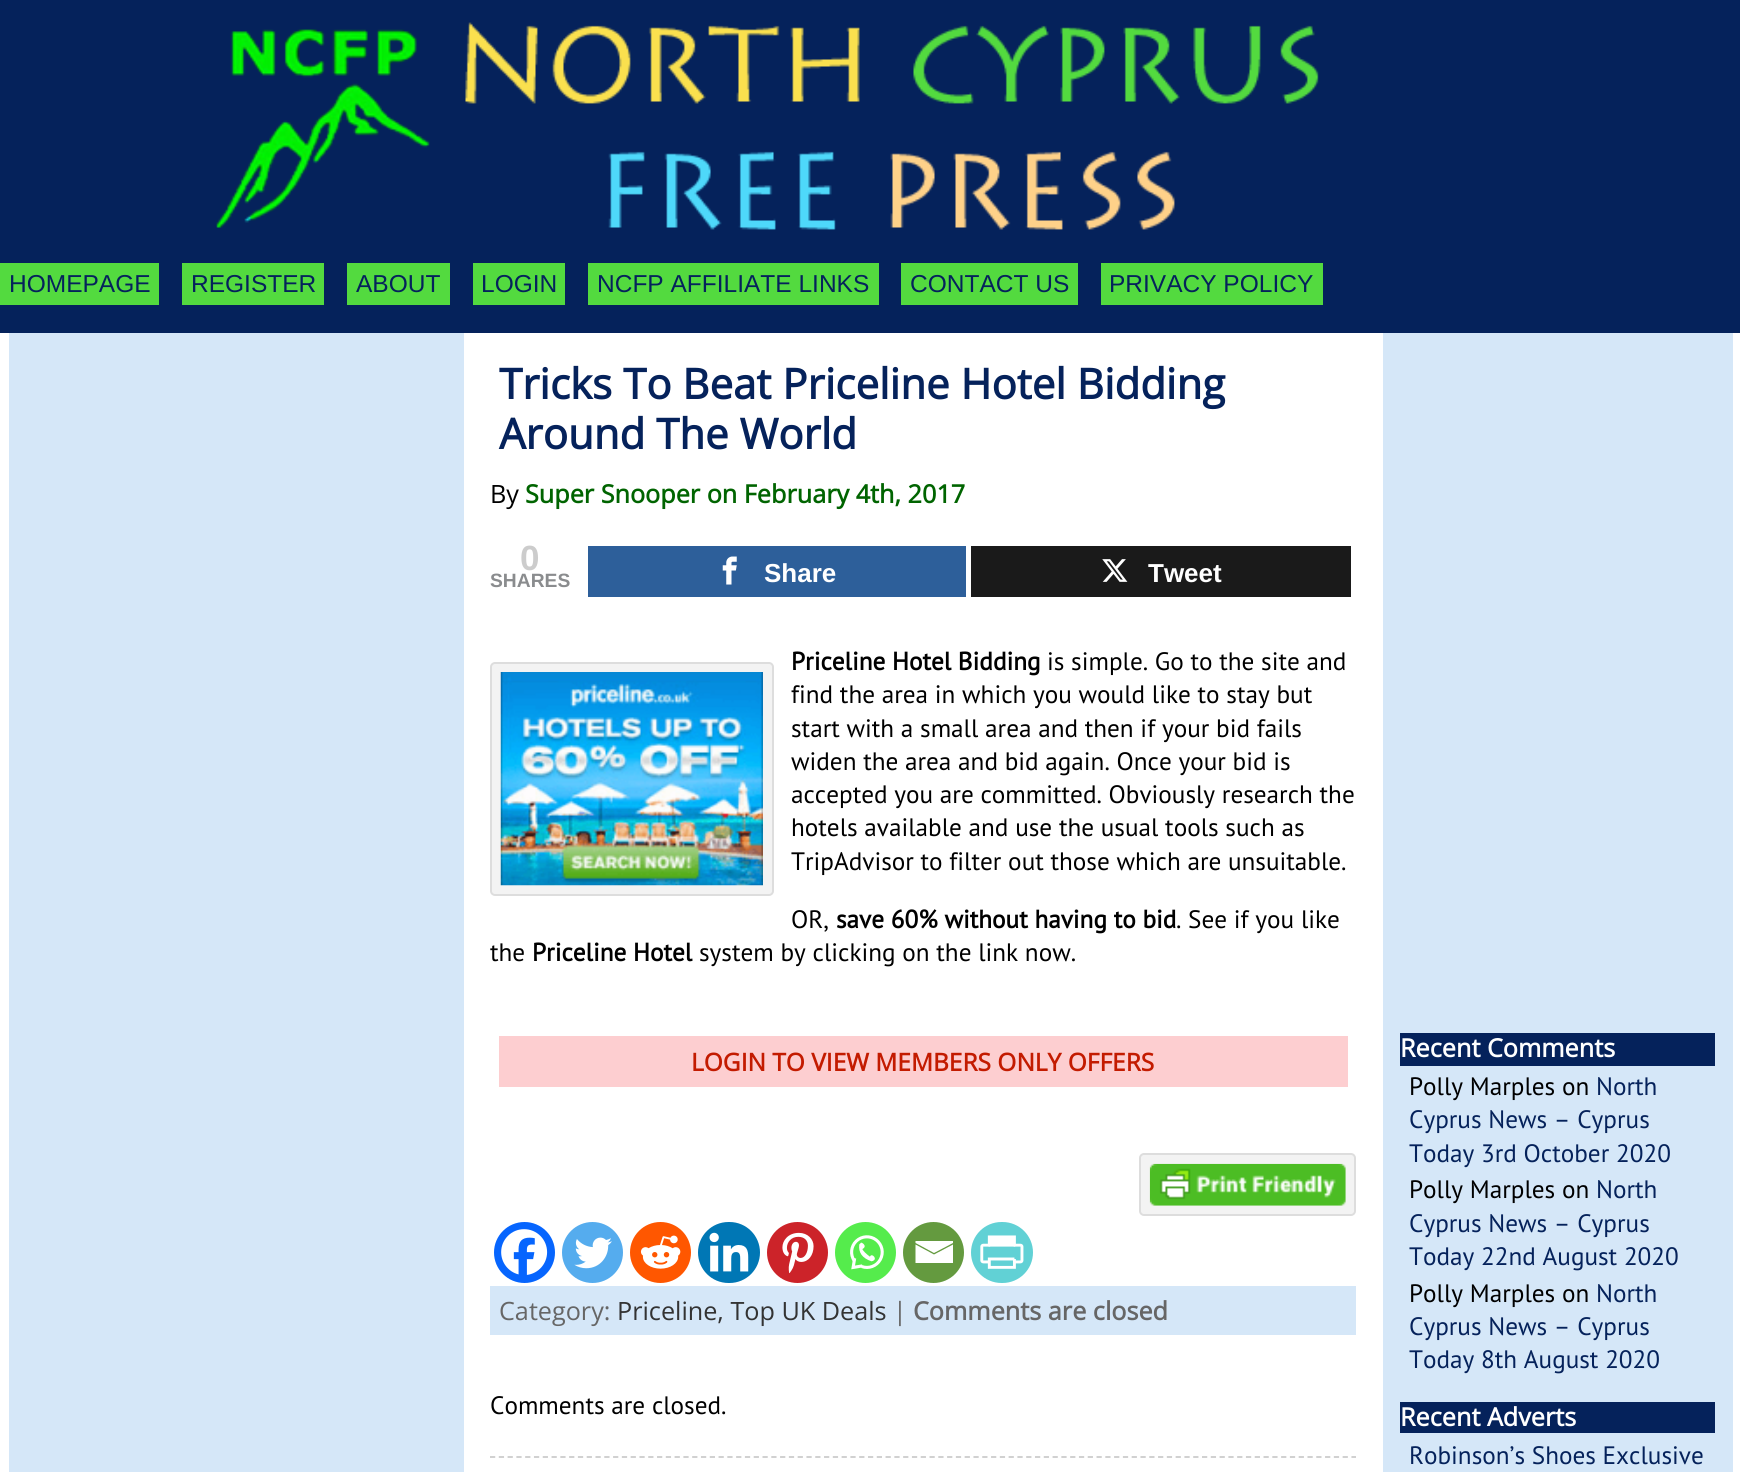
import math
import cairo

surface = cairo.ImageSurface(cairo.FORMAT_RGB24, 1740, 1472)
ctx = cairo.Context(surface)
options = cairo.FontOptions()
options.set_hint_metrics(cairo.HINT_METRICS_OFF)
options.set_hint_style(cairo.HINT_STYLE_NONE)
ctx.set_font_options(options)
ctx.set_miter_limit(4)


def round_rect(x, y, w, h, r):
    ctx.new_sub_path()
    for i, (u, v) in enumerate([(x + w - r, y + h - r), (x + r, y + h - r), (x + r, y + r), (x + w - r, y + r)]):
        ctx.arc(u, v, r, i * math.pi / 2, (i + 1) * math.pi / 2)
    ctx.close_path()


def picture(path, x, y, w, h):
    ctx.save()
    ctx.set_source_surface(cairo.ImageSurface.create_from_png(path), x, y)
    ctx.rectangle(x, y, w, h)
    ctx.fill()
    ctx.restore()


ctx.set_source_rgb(1, 1, 1)
ctx.paint()
ctx.set_source_rgb(0.02, 0.133, 0.357)
ctx.rectangle(0, 0, 1740, 333)
ctx.fill()
picture("img1.png", 216, 22, 1103, 208)
ctx.set_source_rgb(0.325, 0.855, 0.247)
ctx.rectangle(0, 263, 159, 42)
ctx.fill()
ctx.select_font_face("Liberation Sans")
ctx.set_font_size(24.5)
ctx.set_source_rgb(0.02, 0.133, 0.357)
ctx.move_to(9, 292)
ctx.show_text("HOMEPAGE")
ctx.set_source_rgb(0.325, 0.855, 0.247)
ctx.rectangle(182, 263, 142, 42)
ctx.fill()
ctx.set_source_rgb(0.02, 0.133, 0.357)
ctx.move_to(191, 292)
ctx.show_text("REGISTER")
ctx.set_source_rgb(0.325, 0.855, 0.247)
ctx.rectangle(347, 263, 103, 42)
ctx.fill()
ctx.set_source_rgb(0.02, 0.133, 0.357)
ctx.move_to(356, 292)
ctx.show_text("ABOUT")
ctx.set_source_rgb(0.325, 0.855, 0.247)
ctx.rectangle(473, 263, 92, 42)
ctx.fill()
ctx.set_source_rgb(0.02, 0.133, 0.357)
ctx.move_to(481, 292)
ctx.show_text("LOGIN")
ctx.set_source_rgb(0.325, 0.855, 0.247)
ctx.rectangle(588, 263, 291, 42)
ctx.fill()
ctx.set_source_rgb(0.02, 0.133, 0.357)
ctx.move_to(597, 292)
ctx.show_text("NCFP AFFILIATE LINKS")
ctx.set_source_rgb(0.325, 0.855, 0.247)
ctx.rectangle(901, 263, 177, 42)
ctx.fill()
ctx.set_source_rgb(0.02, 0.133, 0.357)
ctx.move_to(910, 292)
ctx.show_text("CONTACT US")
ctx.set_source_rgb(0.325, 0.855, 0.247)
ctx.rectangle(1101, 263, 222, 42)
ctx.fill()
ctx.set_source_rgb(0.02, 0.133, 0.357)
ctx.move_to(1109, 292)
ctx.show_text("PRIVACY POLICY")
ctx.set_source_rgb(0.835, 0.906, 0.969)
ctx.rectangle(9, 333, 455, 1139)
ctx.fill()
ctx.select_font_face("Open Sans", cairo.FONT_SLANT_NORMAL, cairo.FONT_WEIGHT_BOLD)
ctx.set_font_size(42)
ctx.set_source_rgb(0.02, 0.133, 0.357)
ctx.move_to(499, 399)
ctx.show_text("Tricks To Beat Priceline Hotel Bidding")
ctx.move_to(499, 449)
ctx.show_text("Around The World")
ctx.select_font_face("Open Sans")
ctx.set_font_size(25.2)
ctx.set_source_rgb(0, 0, 0)
ctx.move_to(490, 503)
ctx.show_text("By")
ctx.select_font_face("Open Sans", cairo.FONT_SLANT_NORMAL, cairo.FONT_WEIGHT_BOLD)
ctx.set_source_rgb(0, 0.392, 0)
ctx.move_to(525, 503)
ctx.show_text("Super Snooper on February 4th, 2017")
ctx.select_font_face("Liberation Sans", cairo.FONT_SLANT_NORMAL, cairo.FONT_WEIGHT_BOLD)
ctx.set_font_size(35)
ctx.set_source_rgb(0.8, 0.8, 0.8)
ctx.move_to(520, 570)
ctx.show_text("0")
ctx.set_font_size(19.25)
ctx.set_source_rgb(0.541, 0.549, 0.557)
ctx.move_to(490, 587)
ctx.show_text("SHARES")
ctx.set_source_rgb(0.176, 0.373, 0.604)
ctx.rectangle(588, 546, 378, 51)
ctx.fill()
picture("img2.png", 722, 556, 15, 29)
ctx.set_font_size(26)
ctx.set_source_rgb(1, 1, 1)
ctx.move_to(764, 582)
ctx.show_text("Share")
ctx.set_source_rgb(0.102, 0.102, 0.102)
ctx.rectangle(971, 546, 380, 51)
ctx.fill()
picture("img3.png", 1102, 559, 26, 23)
ctx.set_source_rgb(1, 1, 1)
ctx.move_to(1148, 582)
ctx.show_text("Tweet")
ctx.set_source_rgb(0.953, 0.953, 0.953)
round_rect(491, 663, 282, 232, 4)
ctx.fill_preserve()
ctx.set_source_rgb(0.867, 0.867, 0.867)
ctx.stroke()
picture("img4.png", 500, 672, 263, 214)
ctx.select_font_face("PT Sans", cairo.FONT_SLANT_NORMAL, cairo.FONT_WEIGHT_BOLD)
ctx.set_font_size(25.2)
ctx.set_source_rgb(0, 0, 0)
ctx.move_to(791, 670)
ctx.show_text("Priceline Hotel Bidding")
ctx.select_font_face("PT Sans")
ctx.move_to(1047, 670)
ctx.show_text("is simple. Go to the site and")
ctx.move_to(791, 703)
ctx.show_text("find the area in which you would like to stay but")
ctx.move_to(791, 737)
ctx.show_text("start with a small area and then if your bid fails")
ctx.move_to(791, 770)
ctx.show_text("widen the area and bid again. Once your bid is")
ctx.move_to(791, 803)
ctx.show_text("accepted you are committed. Obviously research the")
ctx.move_to(791, 836)
ctx.show_text("hotels available and use the usual tools such as")
ctx.move_to(791, 870)
ctx.show_text("TripAdvisor to filter out those which are unsuitable.")
ctx.move_to(791, 928)
ctx.show_text("OR,")
ctx.select_font_face("PT Sans", cairo.FONT_SLANT_NORMAL, cairo.FONT_WEIGHT_BOLD)
ctx.move_to(836, 928)
ctx.show_text("save 60% without having to bid")
ctx.select_font_face("PT Sans")
ctx.move_to(1176, 928)
ctx.show_text(". See if you like")
ctx.move_to(490, 961)
ctx.show_text("the")
ctx.select_font_face("PT Sans", cairo.FONT_SLANT_NORMAL, cairo.FONT_WEIGHT_BOLD)
ctx.move_to(532, 961)
ctx.show_text("Priceline Hotel")
ctx.select_font_face("PT Sans")
ctx.move_to(699, 961)
ctx.show_text("system by clicking on the link now.")
ctx.set_source_rgb(0.992, 0.808, 0.816)
ctx.rectangle(499, 1036, 849, 51)
ctx.fill()
ctx.select_font_face("Open Sans", cairo.FONT_SLANT_NORMAL, cairo.FONT_WEIGHT_BOLD)
ctx.set_font_size(24.5)
ctx.set_source_rgb(0.765, 0.106, 0)
ctx.move_to(691, 1071)
ctx.show_text("LOGIN TO VIEW MEMBERS ONLY OFFERS")
ctx.set_source_rgb(0.953, 0.953, 0.953)
round_rect(1140, 1154, 215, 61, 4)
ctx.fill_preserve()
ctx.set_source_rgb(0.867, 0.867, 0.867)
ctx.stroke()
picture("img5.png", 1149, 1163, 197, 43)
ctx.set_source_rgb(0.027, 0.396, 0.996)
ctx.arc(524.5, 1252.5, 30.5, 0, 2 * math.pi)
ctx.fill()
picture("img6.png", 501, 1229, 47, 46)
ctx.set_source_rgb(0.333, 0.675, 0.933)
ctx.arc(592.5, 1252.5, 30.5, 0, 2 * math.pi)
ctx.fill()
picture("img7.png", 574, 1237, 38, 32)
ctx.set_source_rgb(1, 0.341, 0)
ctx.arc(660.5, 1252.5, 30.5, 0, 2 * math.pi)
ctx.fill()
picture("img8.png", 640, 1235, 41, 34)
ctx.set_source_rgb(0, 0.467, 0.71)
round_rect(698, 1222, 62, 61, 30.5)
ctx.fill()
picture("img9.png", 709, 1232, 40, 40)
ctx.set_source_rgb(0.8, 0.137, 0.161)
ctx.arc(797.5, 1252.5, 30.5, 0, 2 * math.pi)
ctx.fill()
picture("img10.png", 782, 1232, 32, 42)
ctx.set_source_rgb(0.333, 0.922, 0.298)
ctx.arc(865.5, 1252.5, 30.5, 0, 2 * math.pi)
ctx.fill()
picture("img11.png", 850, 1235, 34, 35)
ctx.set_source_rgb(0.392, 0.604, 0.247)
ctx.arc(933.5, 1252.5, 30.5, 0, 2 * math.pi)
ctx.fill()
ctx.set_source_rgb(1, 1, 1)
ctx.new_path()
ctx.move_to(913.5, 1241)
ctx.line_to(953, 1241)
ctx.line_to(953, 1243)
ctx.line_to(934, 1253)
ctx.line_to(915.5, 1243)
ctx.line_to(915.5, 1241)
ctx.move_to(915.5, 1244.5)
ctx.line_to(934, 1254.5)
ctx.line_to(953, 1244.5)
ctx.line_to(953, 1263)
ctx.line_to(915.5, 1263)
ctx.line_to(915.5, 1244.5)
ctx.fill()
ctx.set_source_rgb(0.38, 0.82, 0.835)
round_rect(971, 1222, 62, 61, 30.5)
ctx.fill()
picture("img12.png", 980, 1235, 44, 34)
ctx.set_source_rgb(0.835, 0.906, 0.969)
ctx.rectangle(490, 1286, 866, 49)
ctx.fill()
ctx.select_font_face("Open Sans")
ctx.set_font_size(25.2)
ctx.set_source_rgb(0.4, 0.4, 0.4)
ctx.move_to(499, 1320)
ctx.show_text("Category:")
ctx.set_source_rgb(0.2, 0.2, 0.2)
ctx.move_to(617, 1320)
ctx.show_text("Priceline, Top UK Deals")
ctx.set_source_rgb(0.4, 0.4, 0.4)
ctx.move_to(893, 1320)
ctx.show_text("|")
ctx.select_font_face("Open Sans", cairo.FONT_SLANT_NORMAL, cairo.FONT_WEIGHT_BOLD)
ctx.move_to(913, 1320)
ctx.show_text("Comments are closed")
ctx.select_font_face("PT Sans")
ctx.set_source_rgb(0, 0, 0)
ctx.move_to(490, 1414)
ctx.show_text("Comments are closed.")
ctx.new_path()
ctx.move_to(490, 1457)
ctx.line_to(1356, 1457)
ctx.set_source_rgb(0.8, 0.8, 0.8)
ctx.set_line_width(1.8)
ctx.set_dash([5.25, 3.54])
ctx.stroke()
ctx.set_source_rgb(0.835, 0.906, 0.969)
ctx.rectangle(1383, 333, 350, 1139)
ctx.fill()
ctx.set_source_rgb(0.02, 0.133, 0.357)
ctx.rectangle(1400, 1033, 315, 33)
ctx.fill()
ctx.select_font_face("Open Sans", cairo.FONT_SLANT_NORMAL, cairo.FONT_WEIGHT_BOLD)
ctx.set_source_rgb(1, 1, 1)
ctx.move_to(1400, 1057)
ctx.show_text("Recent Comments")
ctx.select_font_face("PT Sans")
ctx.set_source_rgb(0, 0, 0)
ctx.move_to(1409, 1095)
ctx.show_text("Polly Marples on")
ctx.set_source_rgb(0.02, 0.133, 0.357)
ctx.move_to(1596, 1095)
ctx.show_text("North")
ctx.move_to(1409, 1128)
ctx.show_text("Cyprus News – Cyprus")
ctx.move_to(1409, 1162)
ctx.show_text("Today 3rd October 2020")
ctx.set_source_rgb(0, 0, 0)
ctx.move_to(1409, 1198)
ctx.show_text("Polly Marples on")
ctx.set_source_rgb(0.02, 0.133, 0.357)
ctx.move_to(1596, 1198)
ctx.show_text("North")
ctx.move_to(1409, 1232)
ctx.show_text("Cyprus News – Cyprus")
ctx.move_to(1409, 1265)
ctx.show_text("Today 22nd August 2020")
ctx.set_source_rgb(0, 0, 0)
ctx.move_to(1409, 1302)
ctx.show_text("Polly Marples on")
ctx.set_source_rgb(0.02, 0.133, 0.357)
ctx.move_to(1596, 1302)
ctx.show_text("North")
ctx.move_to(1409, 1335)
ctx.show_text("Cyprus News – Cyprus")
ctx.move_to(1409, 1368)
ctx.show_text("Today 8th August 2020")
ctx.rectangle(1400, 1402, 315, 31)
ctx.fill()
ctx.select_font_face("Open Sans", cairo.FONT_SLANT_NORMAL, cairo.FONT_WEIGHT_BOLD)
ctx.set_source_rgb(1, 1, 1)
ctx.move_to(1400, 1426)
ctx.show_text("Recent Adverts")
ctx.select_font_face("PT Sans")
ctx.set_source_rgb(0.02, 0.133, 0.357)
ctx.move_to(1409, 1464)
ctx.show_text("Robinson’s Shoes Exclusive")
surface.write_to_png("page.png")
